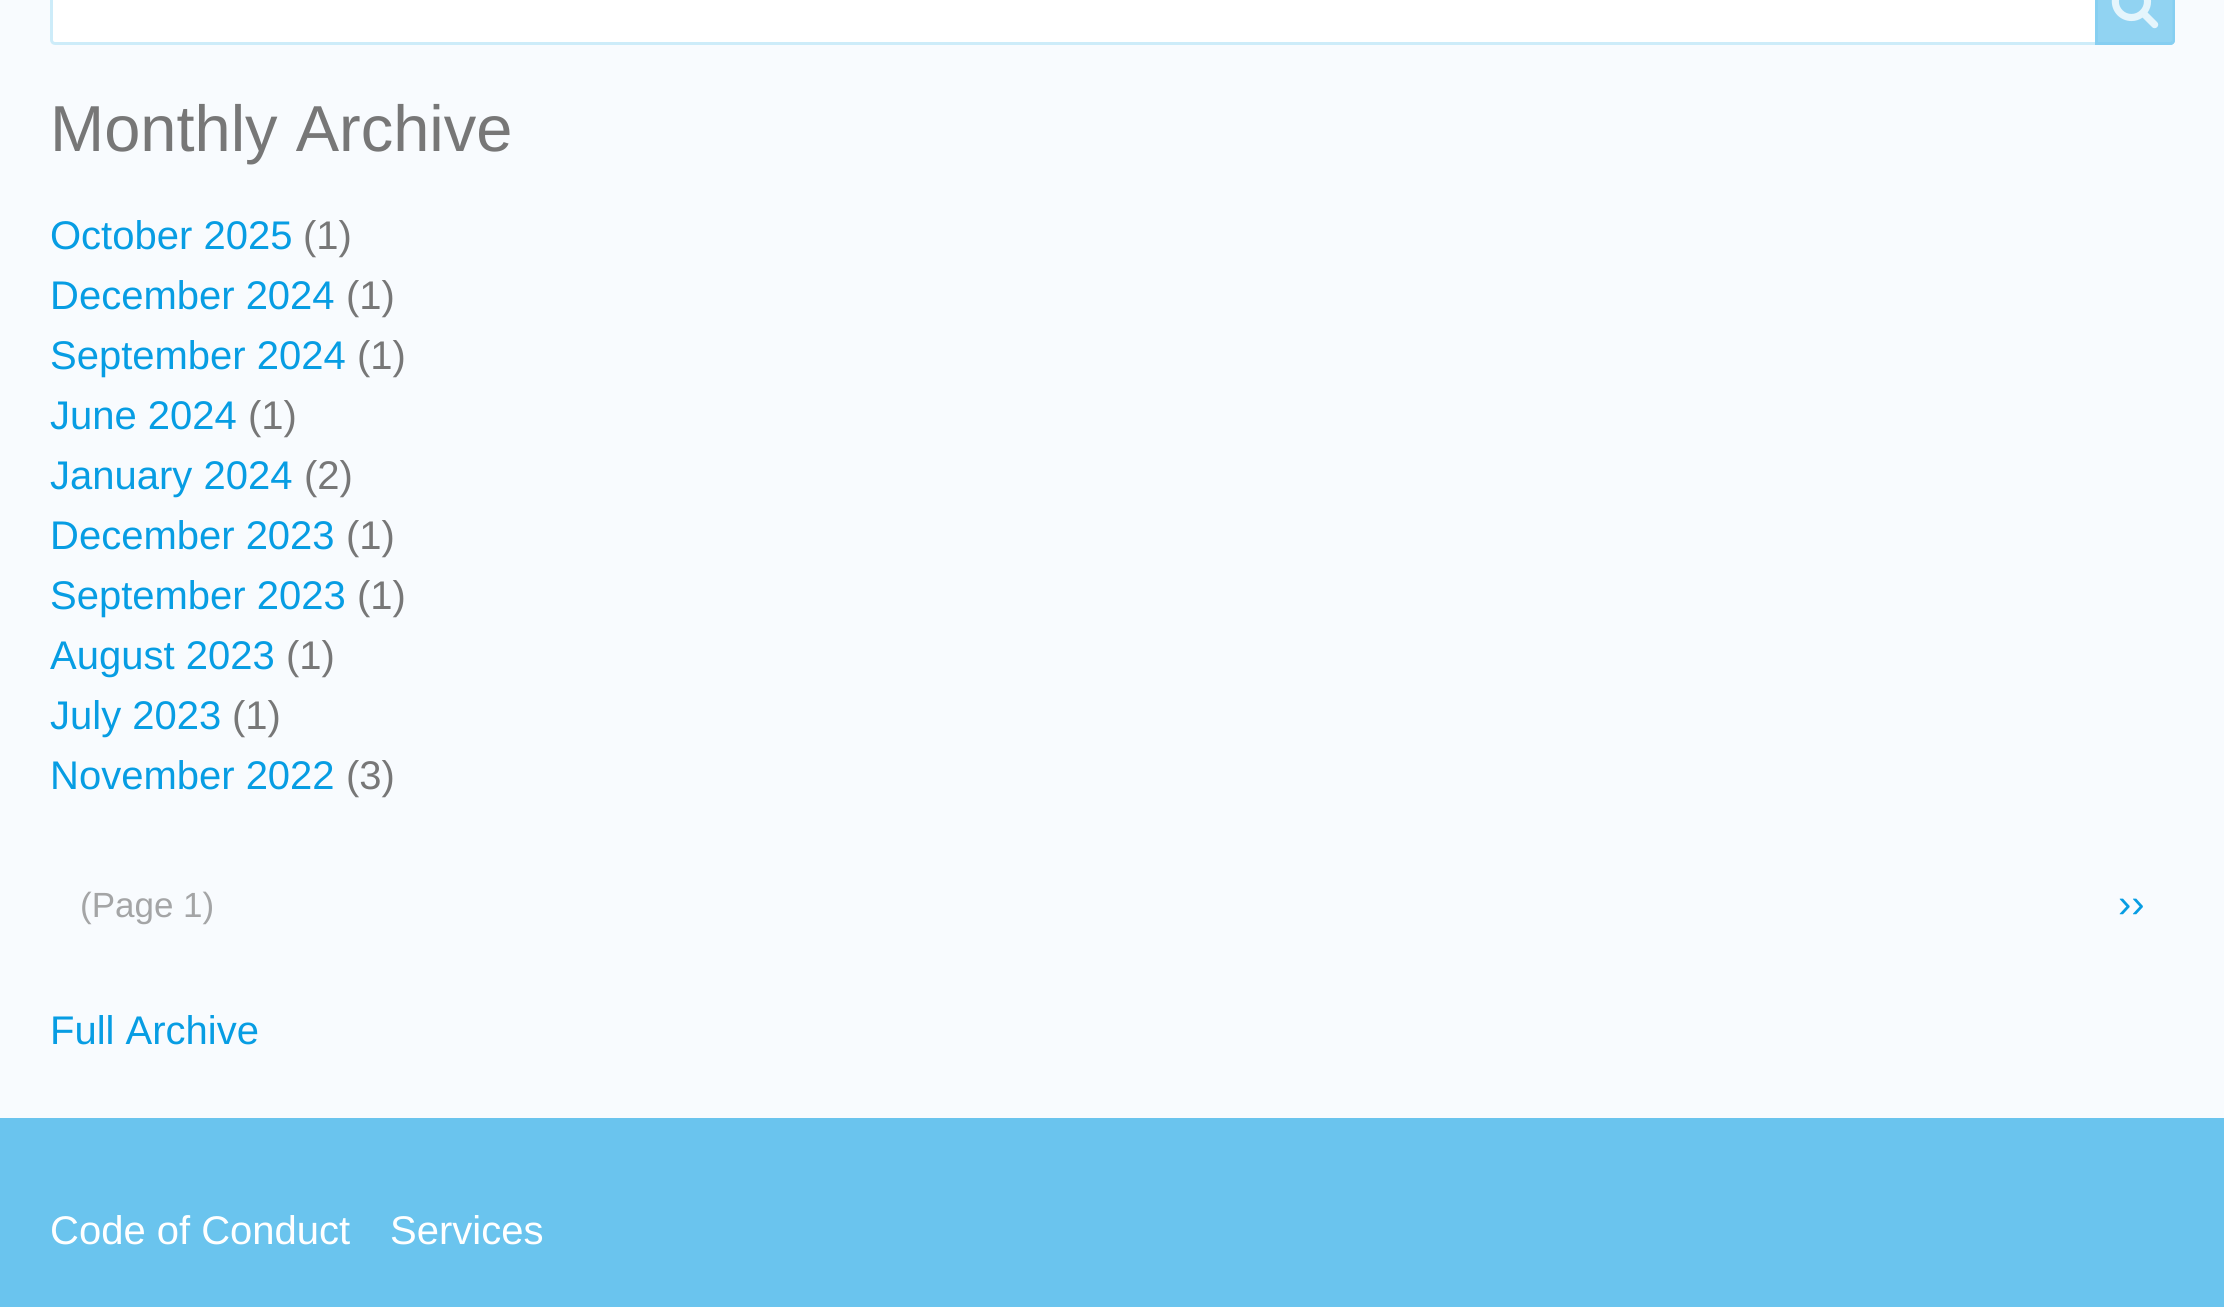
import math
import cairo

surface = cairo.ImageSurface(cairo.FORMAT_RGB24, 2224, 1307)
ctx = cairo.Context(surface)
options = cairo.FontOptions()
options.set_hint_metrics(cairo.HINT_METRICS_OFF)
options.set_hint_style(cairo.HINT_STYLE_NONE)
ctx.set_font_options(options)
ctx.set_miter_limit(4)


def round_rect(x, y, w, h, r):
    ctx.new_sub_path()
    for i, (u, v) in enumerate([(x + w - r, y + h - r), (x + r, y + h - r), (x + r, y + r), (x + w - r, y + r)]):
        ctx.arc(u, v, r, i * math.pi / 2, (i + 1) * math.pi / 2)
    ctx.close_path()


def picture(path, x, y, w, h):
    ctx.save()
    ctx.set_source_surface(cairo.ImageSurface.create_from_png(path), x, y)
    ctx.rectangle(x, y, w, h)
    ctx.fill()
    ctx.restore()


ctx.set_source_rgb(0.969, 0.984, 0.996)
ctx.paint()
ctx.set_source_rgb(1, 1, 1)
round_rect(51.5, -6.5, 2122, 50, 3.5)
ctx.fill_preserve()
ctx.set_source_rgb(0.804, 0.922, 0.976)
ctx.set_line_width(3)
ctx.stroke()
ctx.set_source_rgba(0.522, 0.808, 0.945, 0.9)
ctx.new_path()
ctx.move_to(2095, -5)
ctx.line_to(2170, -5)
ctx.curve_to(2173, -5, 2175, -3, 2175, 0)
ctx.line_to(2175, 40)
ctx.curve_to(2175, 43, 2173, 45, 2170, 45)
ctx.line_to(2095, 45)
ctx.close_path()
ctx.fill()
picture("img1.png", 2111, 0, 48, 29)
ctx.set_source_rgb(0.765, 0.906, 0.973)
ctx.new_path()
ctx.move_to(2098, -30)
ctx.line_to(2158, -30)
ctx.curve_to(2162, -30, 2172, -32, 2172, -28)
ctx.line_to(2172, 43)
ctx.curve_to(2173, 42, 2173, 41, 2173, 40)
ctx.line_to(2173, -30)
ctx.curve_to(2173, -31, 2172, -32, 2170, -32)
ctx.line_to(2098, -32)
ctx.close_path()
ctx.fill()
ctx.new_path()
ctx.move_to(2096.5, -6.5)
ctx.line_to(2170, -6.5)
ctx.curve_to(2172, -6.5, 2173.5, -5, 2173.5, -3)
ctx.line_to(2173.5, 40)
ctx.curve_to(2173.5, 42, 2172, 43.5, 2170, 43.5)
ctx.line_to(2096.5, 43.5)
ctx.close_path()
ctx.set_source_rgba(0.522, 0.808, 0.945, 0.9)
ctx.stroke()
ctx.select_font_face("Liberation Sans")
ctx.set_font_size(65)
ctx.set_source_rgb(0.467, 0.467, 0.467)
ctx.move_to(50, 151)
ctx.show_text("Monthly Archive")
ctx.set_font_size(40)
ctx.set_source_rgb(0.031, 0.616, 0.89)
ctx.move_to(50, 249)
ctx.show_text("October 2025")
ctx.set_source_rgb(0.467, 0.467, 0.467)
ctx.move_to(303, 249)
ctx.show_text("(1)")
ctx.set_source_rgb(0.031, 0.616, 0.89)
ctx.move_to(50, 309)
ctx.show_text("December 2024")
ctx.set_source_rgb(0.467, 0.467, 0.467)
ctx.move_to(346, 309)
ctx.show_text("(1)")
ctx.set_source_rgb(0.031, 0.616, 0.89)
ctx.move_to(50, 369)
ctx.show_text("September 2024")
ctx.set_source_rgb(0.467, 0.467, 0.467)
ctx.move_to(357, 369)
ctx.show_text("(1)")
ctx.set_source_rgb(0.031, 0.616, 0.89)
ctx.move_to(50, 429)
ctx.show_text("June 2024")
ctx.set_source_rgb(0.467, 0.467, 0.467)
ctx.move_to(248, 429)
ctx.show_text("(1)")
ctx.set_source_rgb(0.031, 0.616, 0.89)
ctx.move_to(50, 489)
ctx.show_text("January 2024")
ctx.set_source_rgb(0.467, 0.467, 0.467)
ctx.move_to(304, 489)
ctx.show_text("(2)")
ctx.set_source_rgb(0.031, 0.616, 0.89)
ctx.move_to(50, 549)
ctx.show_text("December 2023")
ctx.set_source_rgb(0.467, 0.467, 0.467)
ctx.move_to(346, 549)
ctx.show_text("(1)")
ctx.set_source_rgb(0.031, 0.616, 0.89)
ctx.move_to(50, 609)
ctx.show_text("September 2023")
ctx.set_source_rgb(0.467, 0.467, 0.467)
ctx.move_to(357, 609)
ctx.show_text("(1)")
ctx.set_source_rgb(0.031, 0.616, 0.89)
ctx.move_to(50, 669)
ctx.show_text("August 2023")
ctx.set_source_rgb(0.467, 0.467, 0.467)
ctx.move_to(286, 669)
ctx.show_text("(1)")
ctx.set_source_rgb(0.031, 0.616, 0.89)
ctx.move_to(50, 729)
ctx.show_text("July 2023")
ctx.set_source_rgb(0.467, 0.467, 0.467)
ctx.move_to(232, 729)
ctx.show_text("(1)")
ctx.set_source_rgb(0.031, 0.616, 0.89)
ctx.move_to(50, 789)
ctx.show_text("November 2022")
ctx.set_source_rgb(0.467, 0.467, 0.467)
ctx.move_to(346, 789)
ctx.show_text("(3)")
ctx.set_font_size(35)
ctx.set_source_rgb(0.643, 0.647, 0.651)
ctx.move_to(80, 917)
ctx.show_text("(Page 1)")
ctx.set_font_size(40)
ctx.set_source_rgb(0.031, 0.616, 0.89)
ctx.move_to(2118, 917)
ctx.show_text("››")
ctx.move_to(50, 1044)
ctx.show_text("Full Archive")
ctx.set_source_rgb(0.416, 0.769, 0.933)
ctx.rectangle(0, 1118, 2224, 189)
ctx.fill()
ctx.set_source_rgb(1, 1, 1)
ctx.move_to(50, 1244)
ctx.show_text("Code of Conduct")
ctx.move_to(390, 1244)
ctx.show_text("Services")
surface.write_to_png("page.png")
